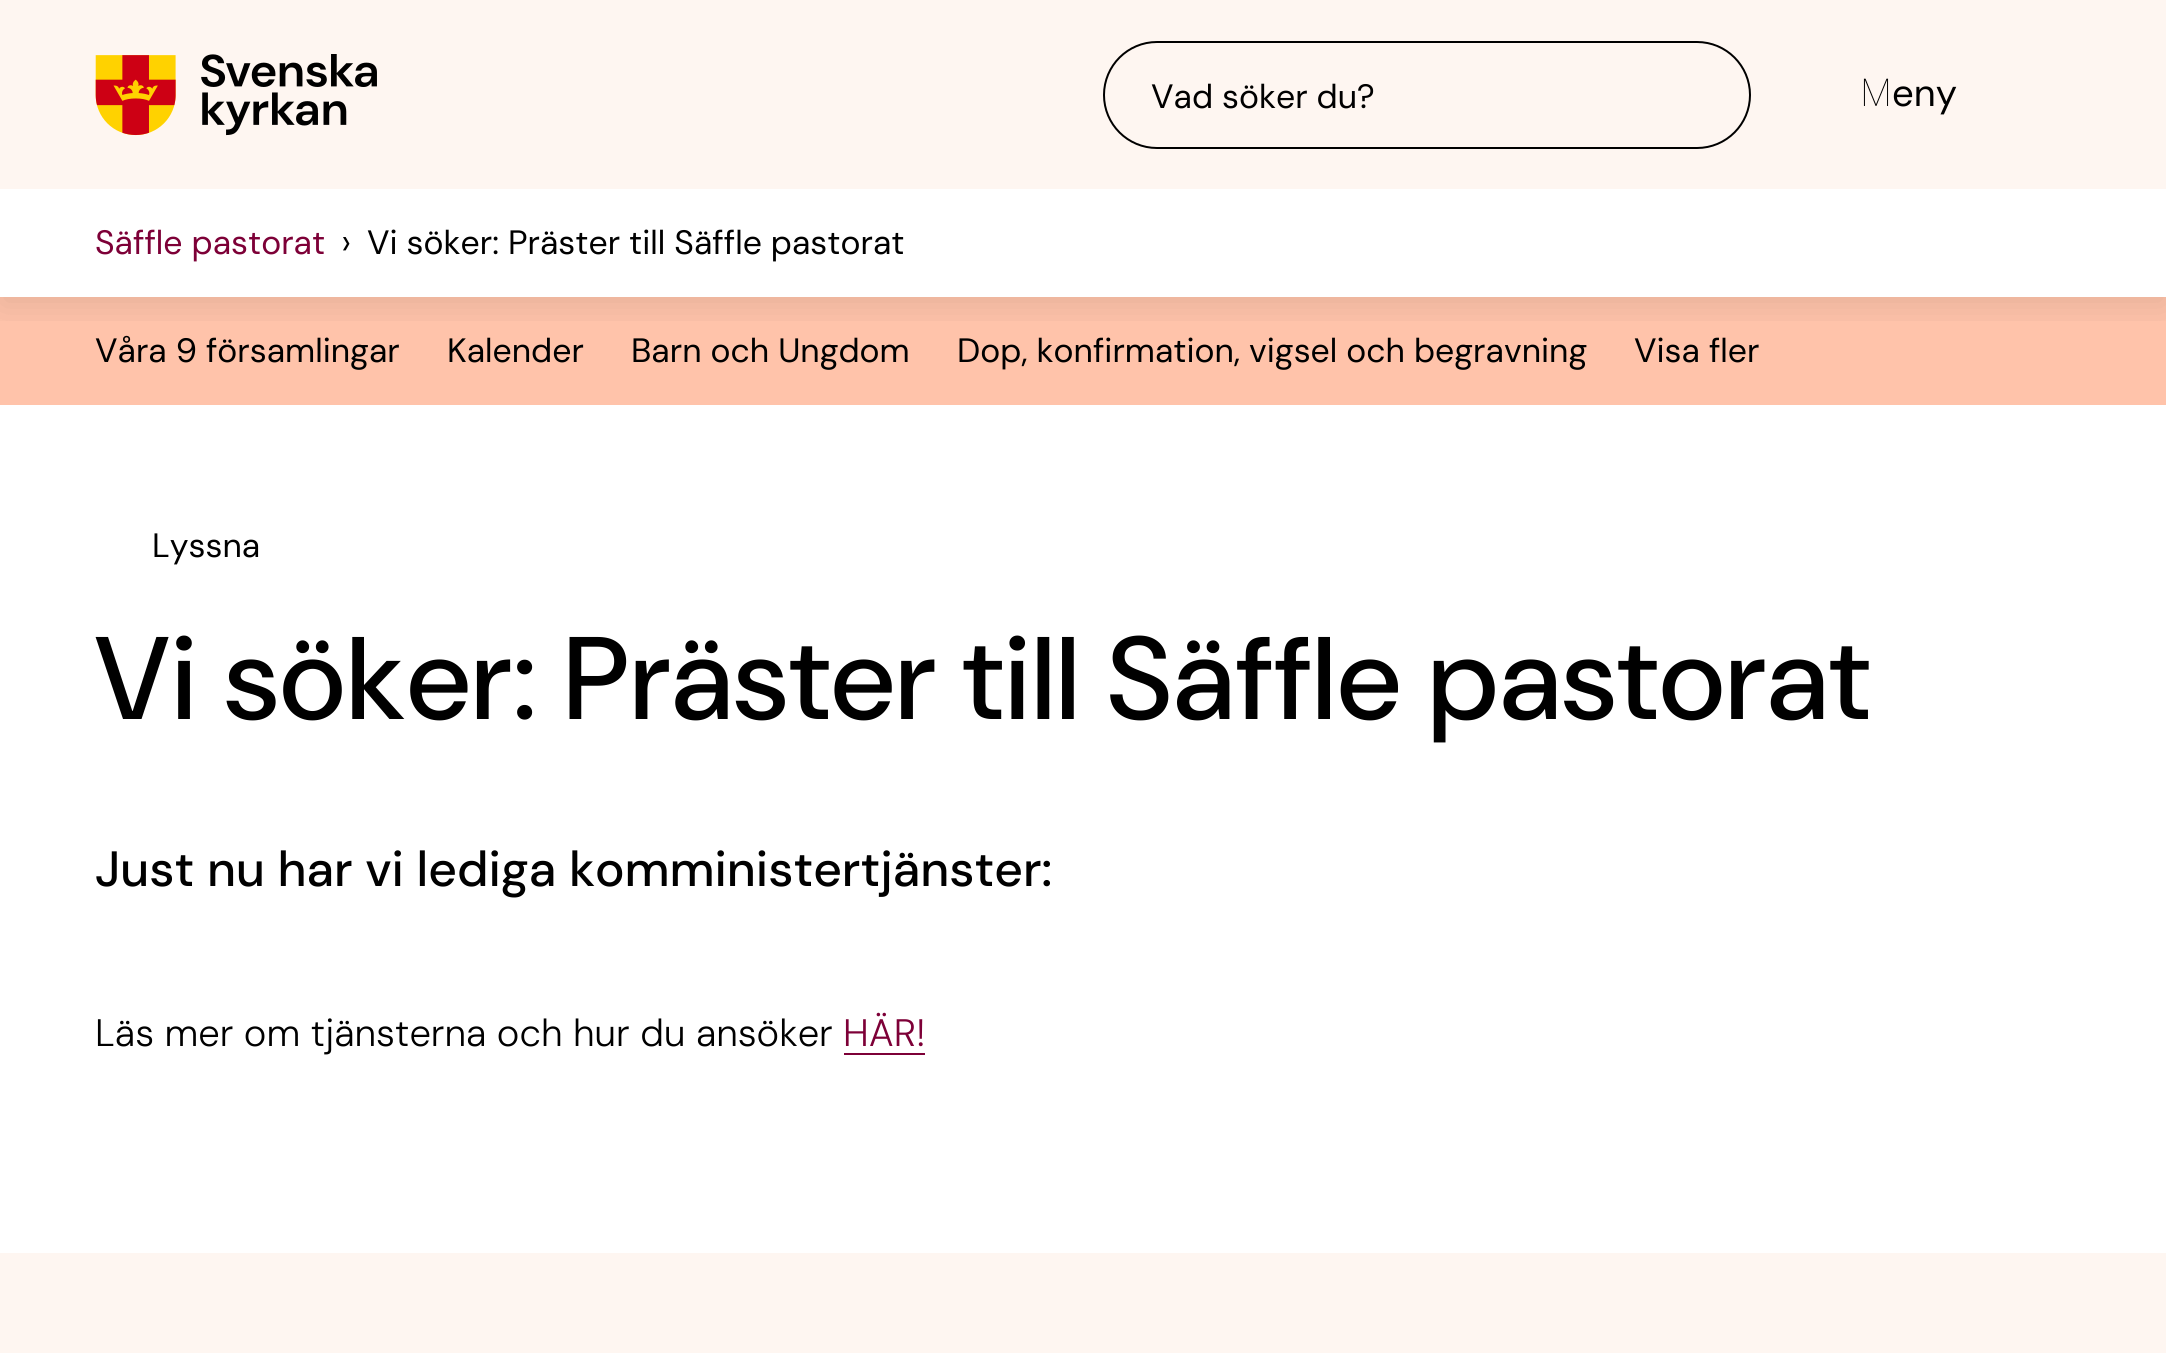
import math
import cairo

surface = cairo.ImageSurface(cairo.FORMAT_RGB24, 2166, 1353)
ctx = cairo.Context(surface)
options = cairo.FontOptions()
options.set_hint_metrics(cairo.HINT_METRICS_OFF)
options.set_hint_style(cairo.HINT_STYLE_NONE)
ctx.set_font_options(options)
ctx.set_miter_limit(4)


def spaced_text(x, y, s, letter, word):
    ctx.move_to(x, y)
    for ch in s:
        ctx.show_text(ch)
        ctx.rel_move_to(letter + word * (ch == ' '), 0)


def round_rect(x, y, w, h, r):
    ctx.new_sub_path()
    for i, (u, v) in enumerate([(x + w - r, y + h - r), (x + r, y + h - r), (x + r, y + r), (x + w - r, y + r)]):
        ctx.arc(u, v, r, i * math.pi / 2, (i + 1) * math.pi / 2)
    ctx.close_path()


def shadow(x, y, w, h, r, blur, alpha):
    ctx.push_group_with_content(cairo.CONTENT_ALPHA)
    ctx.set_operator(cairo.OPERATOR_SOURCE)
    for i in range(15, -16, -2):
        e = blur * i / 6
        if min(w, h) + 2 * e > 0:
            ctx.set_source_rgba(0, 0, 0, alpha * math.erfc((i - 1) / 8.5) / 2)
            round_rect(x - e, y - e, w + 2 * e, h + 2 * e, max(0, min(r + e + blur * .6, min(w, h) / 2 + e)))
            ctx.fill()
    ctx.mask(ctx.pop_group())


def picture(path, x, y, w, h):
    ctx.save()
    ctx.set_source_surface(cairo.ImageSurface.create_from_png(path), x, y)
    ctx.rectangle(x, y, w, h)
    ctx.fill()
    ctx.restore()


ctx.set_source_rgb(1, 1, 1)
ctx.paint()
ctx.set_source_rgb(1, 0.765, 0.667)
ctx.rectangle(0, 297, 2166, 108)
ctx.fill()
ctx.save()
ctx.rectangle(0, 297, 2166, 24)
ctx.clip()
ctx.set_source_rgb(0, 0, 0)
shadow(0, 9, 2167, 297, 0, 18, 0.1)
ctx.restore()
ctx.set_source_rgb(0.996, 0.961, 0.945)
ctx.rectangle(0, 0, 2166, 189)
ctx.fill()
picture("img1.png", 95, 54, 282, 82)
round_rect(1104, 42, 646, 106, 53)
ctx.set_source_rgb(0, 0, 0)
ctx.stroke()
ctx.select_font_face("DM Sans")
ctx.set_font_size(33.75)
ctx.move_to(1151, 108)
ctx.show_text("Vad söker du?")
ctx.select_font_face("Noto Sans Thin")
ctx.set_font_size(38.25)
ctx.move_to(1860, 106)
ctx.show_text("M")
ctx.select_font_face("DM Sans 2")
ctx.move_to(1892, 106)
ctx.show_text("eny")
ctx.select_font_face("DM Sans")
ctx.set_font_size(33.75)
ctx.set_source_rgb(0.49, 0, 0.216)
ctx.move_to(95, 254)
ctx.show_text("Säffle pastorat")
ctx.select_font_face("DM Sans Light")
ctx.set_font_size(38.25)
ctx.set_source_rgb(0, 0, 0)
ctx.move_to(341, 255)
ctx.show_text("›")
ctx.select_font_face("DM Sans")
ctx.set_font_size(33.75)
ctx.move_to(367, 254)
ctx.show_text("Vi söker: Präster till Säffle pastorat")
ctx.move_to(95, 362)
ctx.show_text("Våra 9 församlingar")
ctx.move_to(447, 362)
ctx.show_text("Kalender")
ctx.move_to(631, 362)
ctx.show_text("Barn och Ungdom")
ctx.move_to(957, 362)
ctx.show_text("Dop, konfirmation, vigsel och begravning")
ctx.move_to(1634, 362)
ctx.show_text("Visa fler")
ctx.move_to(152, 557)
ctx.show_text("Lyssna")
ctx.select_font_face("DM Sans Medium")
ctx.set_font_size(117.2)
spaced_text(95, 719, "Vi söker: Präster till Säffle pastorat", 2.35, 0)
ctx.select_font_face("DM Sans 2 Medium")
ctx.set_font_size(49.5)
ctx.move_to(95, 886)
ctx.show_text("Just nu har vi lediga komministertjänster:")
ctx.select_font_face("DM Sans Light")
ctx.set_font_size(38.25)
ctx.move_to(95, 1046)
ctx.show_text("Läs mer om tjänsterna och hur du ansöker")
ctx.set_source_rgb(0.49, 0, 0.216)
ctx.move_to(843, 1046)
ctx.show_text("HÄR!")
ctx.rectangle(844, 1053, 81, 2)
ctx.fill()
ctx.set_source_rgb(0.996, 0.961, 0.945)
ctx.rectangle(0, 1253, 2166, 100)
ctx.fill()
surface.write_to_png("page.png")
